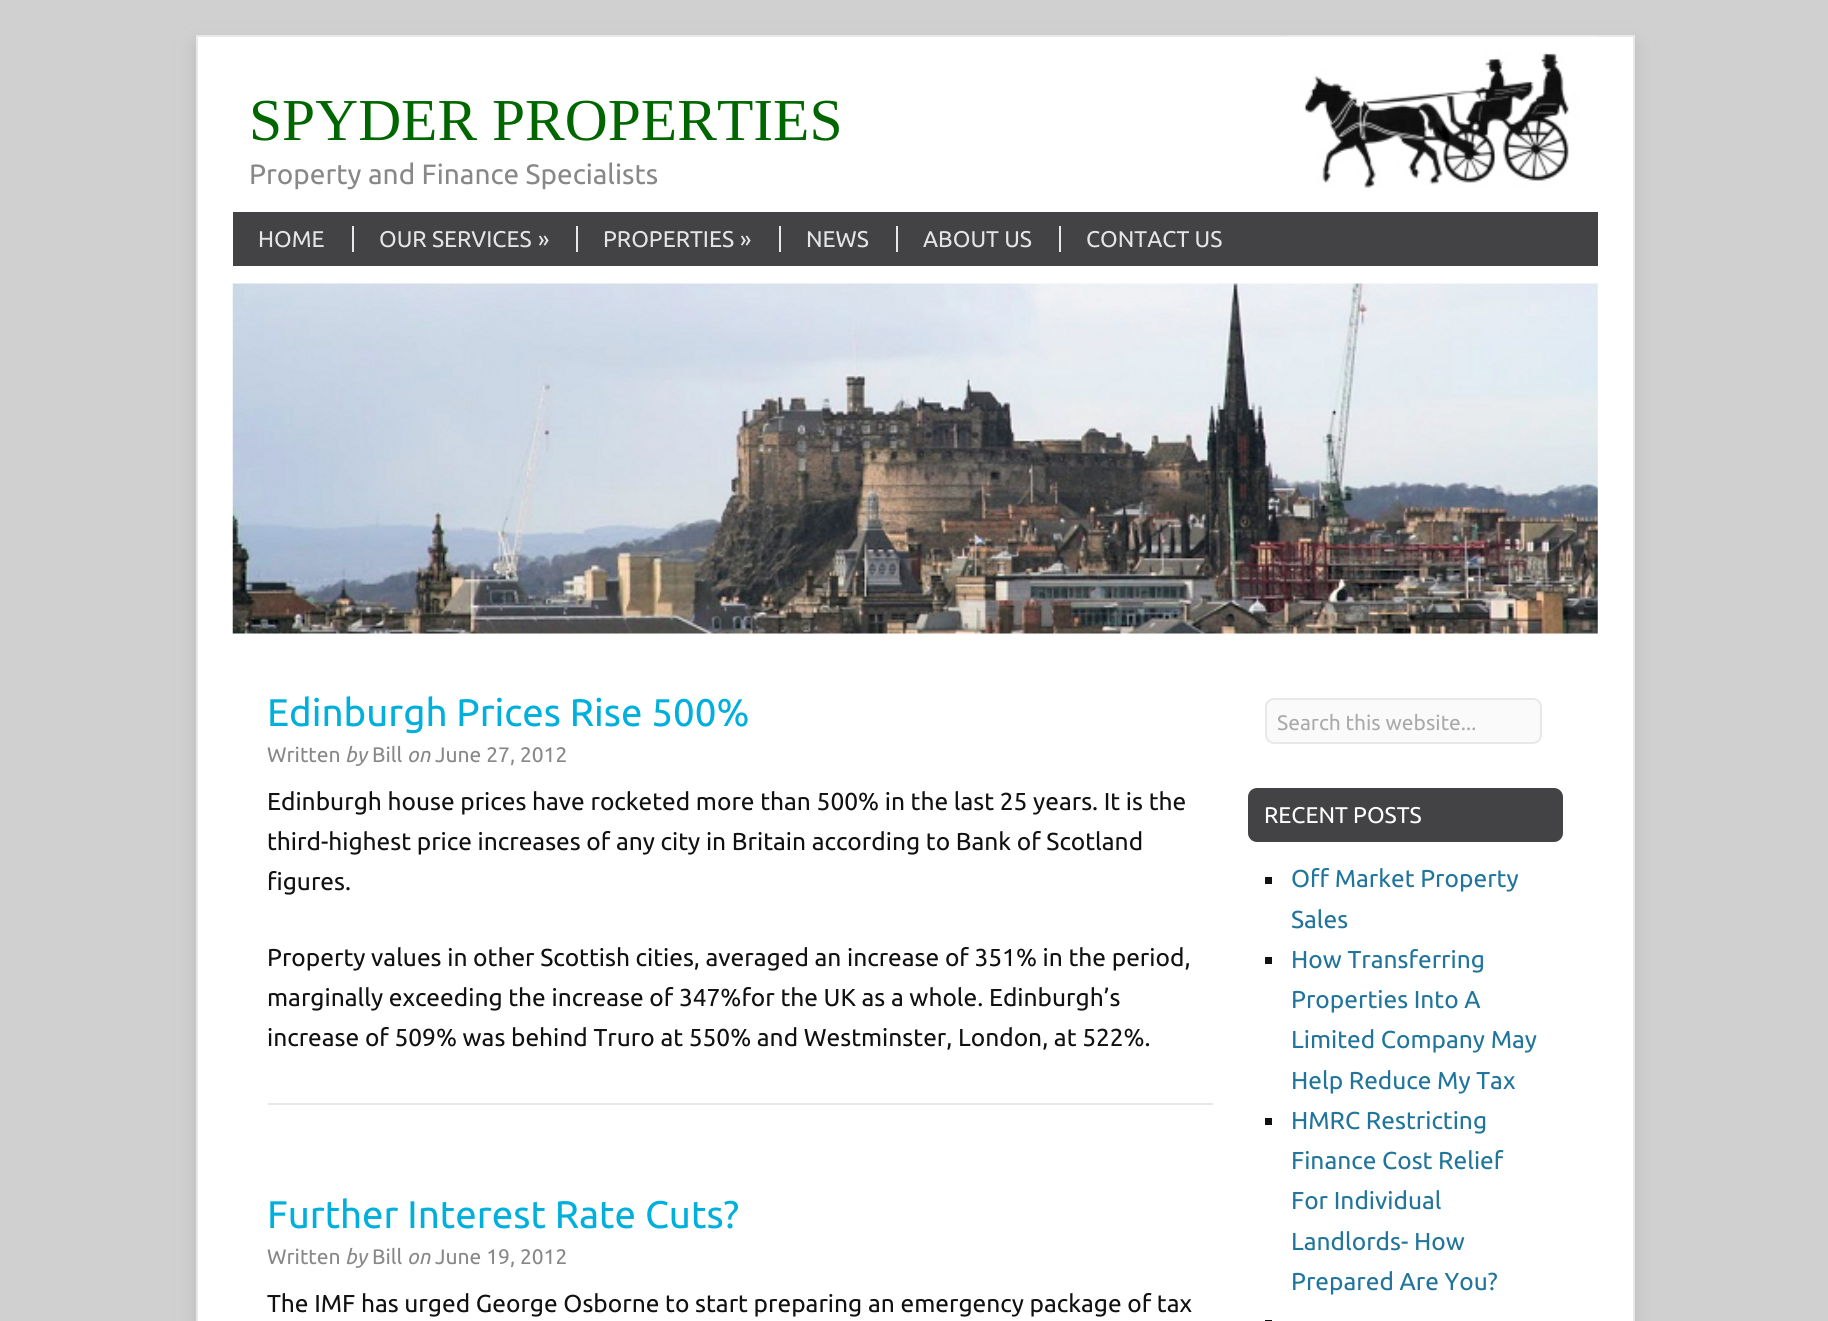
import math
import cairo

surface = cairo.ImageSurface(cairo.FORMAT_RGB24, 1828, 1321)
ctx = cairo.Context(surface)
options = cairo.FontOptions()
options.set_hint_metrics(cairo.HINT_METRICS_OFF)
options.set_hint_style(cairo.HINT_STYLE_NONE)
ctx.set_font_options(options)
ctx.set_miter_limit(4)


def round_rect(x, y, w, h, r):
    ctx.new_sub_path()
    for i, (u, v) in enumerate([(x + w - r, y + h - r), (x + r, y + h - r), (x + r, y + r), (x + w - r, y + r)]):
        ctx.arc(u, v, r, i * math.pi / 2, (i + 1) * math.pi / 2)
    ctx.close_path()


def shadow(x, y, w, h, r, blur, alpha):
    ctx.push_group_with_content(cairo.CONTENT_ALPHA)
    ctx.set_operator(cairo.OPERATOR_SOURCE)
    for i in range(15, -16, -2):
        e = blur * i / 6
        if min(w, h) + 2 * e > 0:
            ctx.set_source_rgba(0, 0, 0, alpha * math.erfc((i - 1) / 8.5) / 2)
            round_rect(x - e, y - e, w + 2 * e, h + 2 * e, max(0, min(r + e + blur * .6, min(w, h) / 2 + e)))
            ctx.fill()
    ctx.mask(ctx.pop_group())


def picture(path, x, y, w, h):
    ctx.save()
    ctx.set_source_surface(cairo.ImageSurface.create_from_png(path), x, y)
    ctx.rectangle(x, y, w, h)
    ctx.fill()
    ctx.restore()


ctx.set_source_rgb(0.816, 0.816, 0.816)
ctx.paint()
ctx.set_source_rgb(0.733, 0.733, 0.733)
shadow(196, 44, 1439, 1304, 0, 9, 1)
ctx.set_source_rgb(1, 1, 1)
ctx.rectangle(197, 36, 1437, 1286)
ctx.fill_preserve()
ctx.set_source_rgb(0.91, 0.91, 0.91)
ctx.stroke()
picture("img1.png", 1286, 36, 312, 152)
ctx.select_font_face("Liberation Serif")
ctx.set_font_size(59.5)
ctx.set_source_rgb(0, 0.4, 0)
ctx.move_to(249, 140)
ctx.show_text("SPYDER PROPERTIES")
ctx.select_font_face("Ubuntu")
ctx.set_font_size(28)
ctx.set_source_rgb(0.533, 0.533, 0.533)
ctx.move_to(249, 184)
ctx.show_text("Property and Finance Specialists")
ctx.set_source_rgb(0.263, 0.259, 0.267)
ctx.rectangle(233, 212, 1365, 54)
ctx.fill()
ctx.set_font_size(22.75)
ctx.set_source_rgb(0.894, 0.898, 0.902)
ctx.move_to(258, 247)
ctx.show_text("HOME")
ctx.set_source_rgb(0.91, 0.91, 0.91)
ctx.rectangle(352, 226, 2, 26)
ctx.fill()
ctx.set_source_rgb(0.894, 0.898, 0.902)
ctx.move_to(379, 247)
ctx.show_text("OUR SERVICES")
ctx.move_to(538, 247)
ctx.show_text("»")
ctx.set_source_rgb(0.91, 0.91, 0.91)
ctx.rectangle(576, 226, 2, 26)
ctx.fill()
ctx.set_source_rgb(0.894, 0.898, 0.902)
ctx.move_to(603, 247)
ctx.show_text("PROPERTIES")
ctx.move_to(740, 247)
ctx.show_text("»")
ctx.set_source_rgb(0.91, 0.91, 0.91)
ctx.rectangle(779, 226, 2, 26)
ctx.fill()
ctx.set_source_rgb(0.894, 0.898, 0.902)
ctx.move_to(806, 247)
ctx.show_text("NEWS")
ctx.set_source_rgb(0.91, 0.91, 0.91)
ctx.rectangle(896, 226, 2, 26)
ctx.fill()
ctx.set_source_rgb(0.894, 0.898, 0.902)
ctx.move_to(923, 247)
ctx.show_text("ABOUT US")
ctx.set_source_rgb(0.91, 0.91, 0.91)
ctx.rectangle(1059, 226, 2, 26)
ctx.fill()
ctx.set_source_rgb(0.894, 0.898, 0.902)
ctx.move_to(1086, 247)
ctx.show_text("CONTACT US")
picture("img2.png", 232, 283, 1366, 351)
ctx.set_font_size(38.5)
ctx.set_source_rgb(0, 0.686, 0.859)
ctx.move_to(267, 726)
ctx.show_text("Edinburgh Prices Rise 500%")
ctx.set_font_size(21)
ctx.set_source_rgb(0.533, 0.533, 0.533)
ctx.move_to(267, 762)
ctx.show_text("Written")
ctx.select_font_face("Ubuntu", cairo.FONT_SLANT_ITALIC)
ctx.move_to(345, 762)
ctx.show_text("by")
ctx.select_font_face("Ubuntu")
ctx.move_to(372, 762)
ctx.show_text("Bill")
ctx.select_font_face("Ubuntu", cairo.FONT_SLANT_ITALIC)
ctx.move_to(407, 762)
ctx.show_text("on")
ctx.select_font_face("Ubuntu")
ctx.move_to(435, 762)
ctx.show_text("June 27, 2012")
ctx.set_font_size(24.5)
ctx.set_source_rgb(0.067, 0.067, 0.067)
ctx.move_to(267, 810)
ctx.show_text("Edinburgh house prices have rocketed more than 500% in the last 25 years. It is the")
ctx.move_to(267, 850)
ctx.show_text("third-highest price increases of any city in Britain according to Bank of Scotland")
ctx.move_to(267, 890)
ctx.show_text("figures.")
ctx.move_to(267, 966)
ctx.show_text("Property values in other Scottish cities, averaged an increase of 351% in the period,")
ctx.move_to(267, 1006)
ctx.show_text("marginally exceeding the increase of 347%for the UK as a whole. Edinburgh’s")
ctx.move_to(267, 1046)
ctx.show_text("increase of 509% was behind Truro at 550% and Westminster, London, at 522%.")
ctx.set_source_rgb(0.91, 0.91, 0.91)
ctx.rectangle(268, 1103, 945, 2)
ctx.fill()
ctx.set_font_size(38.5)
ctx.set_source_rgb(0, 0.686, 0.859)
ctx.move_to(267, 1228)
ctx.show_text("Further Interest Rate Cuts?")
ctx.set_font_size(21)
ctx.set_source_rgb(0.533, 0.533, 0.533)
ctx.move_to(267, 1264)
ctx.show_text("Written")
ctx.select_font_face("Ubuntu", cairo.FONT_SLANT_ITALIC)
ctx.move_to(345, 1264)
ctx.show_text("by")
ctx.select_font_face("Ubuntu")
ctx.move_to(372, 1264)
ctx.show_text("Bill")
ctx.select_font_face("Ubuntu", cairo.FONT_SLANT_ITALIC)
ctx.move_to(407, 1264)
ctx.show_text("on")
ctx.select_font_face("Ubuntu")
ctx.move_to(435, 1264)
ctx.show_text("June 19, 2012")
ctx.set_font_size(24.5)
ctx.set_source_rgb(0.067, 0.067, 0.067)
ctx.move_to(267, 1312)
ctx.show_text("The IMF has urged George Osborne to start preparing an emergency package of tax")
ctx.set_source_rgb(0.98, 0.98, 0.98)
round_rect(1266, 699, 275, 44, 8)
ctx.fill_preserve()
ctx.set_source_rgb(0.91, 0.91, 0.91)
ctx.stroke()
ctx.save()
ctx.rectangle(1278, 711, 262, 22)
ctx.clip()
ctx.set_font_size(21)
ctx.set_source_rgb(0.667, 0.667, 0.667)
ctx.move_to(1277, 730)
ctx.show_text("Search this website...")
ctx.restore()
ctx.set_source_rgb(0.263, 0.259, 0.267)
round_rect(1248, 788, 315, 54, 9)
ctx.fill()
ctx.set_font_size(22.75)
ctx.set_source_rgb(1, 1, 1)
ctx.move_to(1264, 823)
ctx.show_text("RECENT POSTS")
ctx.set_source_rgb(0.067, 0.067, 0.067)
ctx.rectangle(1265, 877, 7, 7)
ctx.fill()
ctx.set_font_size(24.5)
ctx.set_source_rgb(0.129, 0.459, 0.608)
ctx.move_to(1291, 887)
ctx.show_text("Off Market Property")
ctx.move_to(1291, 928)
ctx.show_text("Sales")
ctx.set_source_rgb(0.067, 0.067, 0.067)
ctx.rectangle(1265, 957, 7, 7)
ctx.fill()
ctx.set_source_rgb(0.129, 0.459, 0.608)
ctx.move_to(1291, 968)
ctx.show_text("How Transferring")
ctx.move_to(1291, 1008)
ctx.show_text("Properties Into A")
ctx.move_to(1291, 1048)
ctx.show_text("Limited Company May")
ctx.move_to(1291, 1089)
ctx.show_text("Help Reduce My Tax")
ctx.set_source_rgb(0.067, 0.067, 0.067)
ctx.rectangle(1265, 1118, 7, 7)
ctx.fill()
ctx.set_source_rgb(0.129, 0.459, 0.608)
ctx.move_to(1291, 1129)
ctx.show_text("HMRC Restricting")
ctx.move_to(1291, 1169)
ctx.show_text("Finance Cost Relief")
ctx.move_to(1291, 1209)
ctx.show_text("For Individual")
ctx.move_to(1291, 1250)
ctx.show_text("Landlords- How")
ctx.move_to(1291, 1290)
ctx.show_text("Prepared Are You?")
ctx.set_source_rgb(0.067, 0.067, 0.067)
ctx.rectangle(1265, 1320, 7, 1)
ctx.fill()
surface.write_to_png("page.png")
